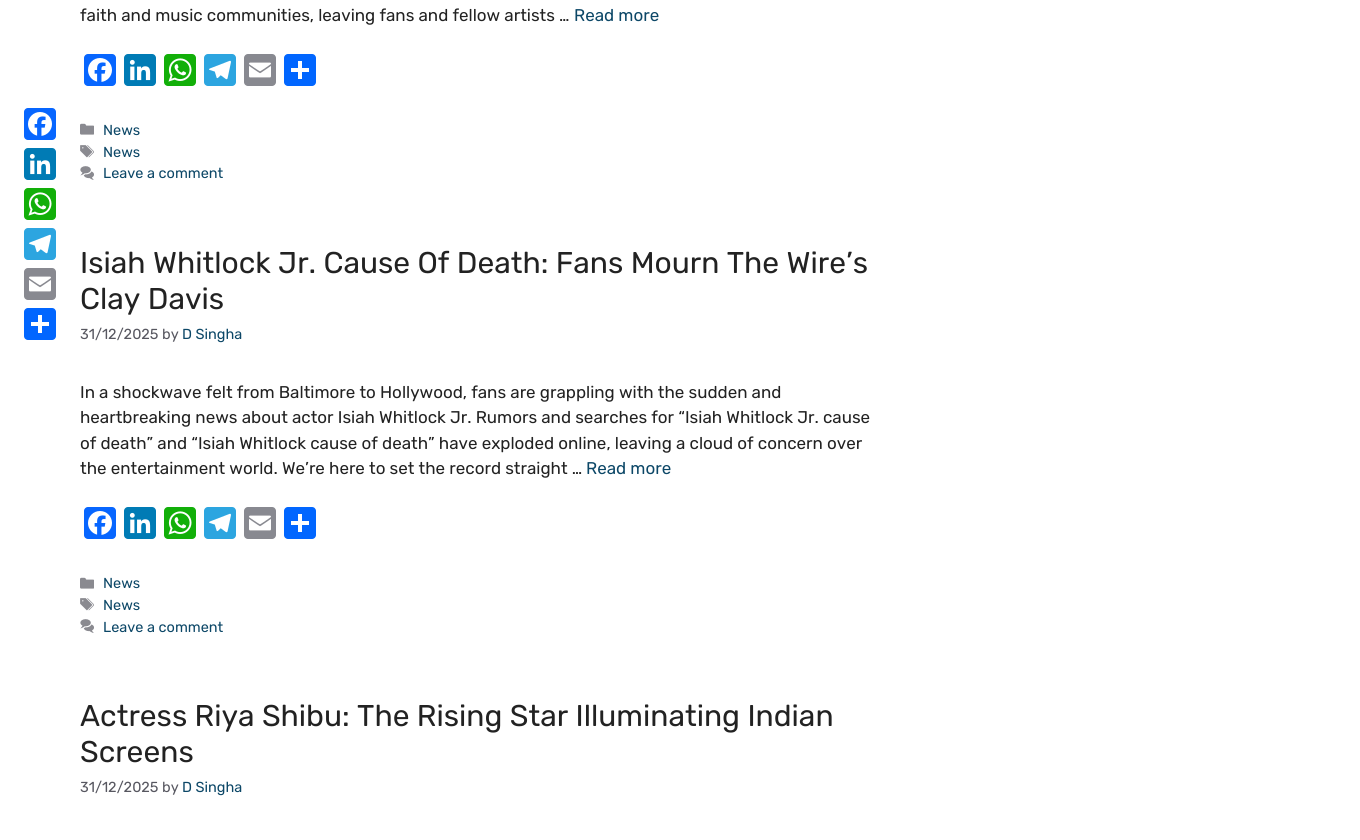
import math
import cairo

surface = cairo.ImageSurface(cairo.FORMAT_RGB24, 1360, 840)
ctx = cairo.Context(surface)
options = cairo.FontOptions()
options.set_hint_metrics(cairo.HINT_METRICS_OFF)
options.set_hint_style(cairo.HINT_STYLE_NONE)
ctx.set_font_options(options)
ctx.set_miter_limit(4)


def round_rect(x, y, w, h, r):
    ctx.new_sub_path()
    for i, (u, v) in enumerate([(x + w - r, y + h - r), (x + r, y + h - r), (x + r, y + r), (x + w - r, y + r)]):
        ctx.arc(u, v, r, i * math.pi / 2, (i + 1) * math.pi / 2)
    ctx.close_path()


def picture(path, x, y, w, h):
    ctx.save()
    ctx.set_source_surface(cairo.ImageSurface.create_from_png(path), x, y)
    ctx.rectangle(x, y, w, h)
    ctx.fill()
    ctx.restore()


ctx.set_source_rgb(1, 1, 1)
ctx.paint()
ctx.set_source_rgb(0.031, 0.4, 1)
round_rect(24, 108, 32, 32, 4)
ctx.fill()
picture("img1.png", 28, 112, 24, 24)
ctx.set_source_rgb(0, 0.482, 0.71)
round_rect(24, 148, 32, 32, 4)
ctx.fill()
picture("img2.png", 29, 153, 22, 22)
ctx.set_source_rgb(0.071, 0.686, 0.039)
round_rect(24, 188, 32, 32, 4)
ctx.fill()
picture("img3.png", 28, 192, 24, 24)
ctx.set_source_rgb(0.173, 0.647, 0.878)
round_rect(24, 228, 32, 32, 4)
ctx.fill()
picture("img4.png", 29, 234, 22, 20)
ctx.set_source_rgb(0.533, 0.537, 0.565)
round_rect(24, 268, 32, 32, 4)
ctx.fill()
picture("img5.png", 29, 276, 22, 16)
ctx.set_source_rgb(0.004, 0.4, 1)
round_rect(24, 308, 32, 32, 4)
ctx.fill()
ctx.set_source_rgb(1, 1, 1)
ctx.rectangle(38, 315, 4, 18)
ctx.fill()
ctx.rectangle(31, 322, 18, 4)
ctx.fill()
ctx.select_font_face("Rubik Light")
ctx.set_font_size(17)
ctx.set_source_rgb(0.133, 0.133, 0.133)
ctx.move_to(80, 21)
ctx.show_text("faith and music communities, leaving fans and fellow artists …")
ctx.set_source_rgb(0.047, 0.278, 0.404)
ctx.move_to(574, 21)
ctx.show_text("Read more")
ctx.set_source_rgb(0.031, 0.4, 1)
round_rect(84, 54, 32, 32, 4)
ctx.fill()
picture("img1.png", 88, 58, 24, 24)
ctx.set_source_rgb(0, 0.482, 0.71)
round_rect(124, 54, 32, 32, 4)
ctx.fill()
picture("img2.png", 129, 59, 22, 22)
ctx.set_source_rgb(0.071, 0.686, 0.039)
round_rect(164, 54, 32, 32, 4)
ctx.fill()
picture("img3.png", 168, 58, 24, 24)
ctx.set_source_rgb(0.173, 0.647, 0.878)
round_rect(204, 54, 32, 32, 4)
ctx.fill()
picture("img4.png", 209, 60, 22, 20)
ctx.set_source_rgb(0.533, 0.537, 0.565)
round_rect(244, 54, 32, 32, 4)
ctx.fill()
picture("img5.png", 249, 62, 22, 16)
ctx.set_source_rgb(0.004, 0.4, 1)
round_rect(284, 54, 32, 32, 4)
ctx.fill()
ctx.set_source_rgb(1, 1, 1)
ctx.rectangle(298, 61, 4, 18)
ctx.fill()
ctx.rectangle(291, 68, 18, 4)
ctx.fill()
picture("img6.png", 80, 123, 14, 12)
ctx.set_font_size(14.5)
ctx.set_source_rgb(0.047, 0.278, 0.404)
ctx.move_to(103, 135)
ctx.show_text("News")
picture("img7.png", 80, 145, 14, 13)
ctx.move_to(103, 157)
ctx.show_text("News")
picture("img8.png", 80, 166, 14, 14)
ctx.move_to(103, 178)
ctx.show_text("Leave a comment")
ctx.set_font_size(30)
ctx.set_source_rgb(0.133, 0.133, 0.133)
ctx.move_to(80, 273)
ctx.show_text("Isiah Whitlock Jr. Cause Of Death: Fans Mourn The Wire’s")
ctx.move_to(80, 309)
ctx.show_text("Clay Davis")
ctx.set_font_size(14.5)
ctx.set_source_rgb(0.341, 0.341, 0.376)
ctx.move_to(80, 339)
ctx.show_text("31/12/2025 by")
ctx.set_source_rgb(0.047, 0.278, 0.404)
ctx.move_to(182, 339)
ctx.show_text("D Singha")
ctx.set_font_size(17)
ctx.set_source_rgb(0.133, 0.133, 0.133)
ctx.move_to(80, 398)
ctx.show_text("In a shockwave felt from Baltimore to Hollywood, fans are grappling with the sudden and")
ctx.move_to(80, 423)
ctx.show_text("heartbreaking news about actor Isiah Whitlock Jr. Rumors and searches for “Isiah Whitlock Jr. cause")
ctx.move_to(80, 449)
ctx.show_text("of death” and “Isiah Whitlock cause of death” have exploded online, leaving a cloud of concern over")
ctx.move_to(80, 474)
ctx.show_text("the entertainment world. We’re here to set the record straight …")
ctx.set_source_rgb(0.047, 0.278, 0.404)
ctx.move_to(586, 474)
ctx.show_text("Read more")
ctx.set_source_rgb(0.031, 0.4, 1)
round_rect(84, 507, 32, 32, 4)
ctx.fill()
picture("img1.png", 88, 511, 24, 24)
ctx.set_source_rgb(0, 0.482, 0.71)
round_rect(124, 507, 32, 32, 4)
ctx.fill()
picture("img2.png", 129, 512, 22, 22)
ctx.set_source_rgb(0.071, 0.686, 0.039)
round_rect(164, 507, 32, 32, 4)
ctx.fill()
picture("img3.png", 168, 511, 24, 24)
ctx.set_source_rgb(0.173, 0.647, 0.878)
round_rect(204, 507, 32, 32, 4)
ctx.fill()
picture("img4.png", 209, 513, 22, 20)
ctx.set_source_rgb(0.533, 0.537, 0.565)
round_rect(244, 507, 32, 32, 4)
ctx.fill()
picture("img5.png", 249, 515, 22, 16)
ctx.set_source_rgb(0.004, 0.4, 1)
round_rect(284, 507, 32, 32, 4)
ctx.fill()
ctx.set_source_rgb(1, 1, 1)
ctx.rectangle(298, 514, 4, 18)
ctx.fill()
ctx.rectangle(291, 521, 18, 4)
ctx.fill()
picture("img6.png", 80, 577, 14, 12)
ctx.set_font_size(14.5)
ctx.set_source_rgb(0.047, 0.278, 0.404)
ctx.move_to(103, 588)
ctx.show_text("News")
picture("img7.png", 80, 598, 14, 13)
ctx.move_to(103, 610)
ctx.show_text("News")
picture("img8.png", 80, 619, 14, 14)
ctx.move_to(103, 632)
ctx.show_text("Leave a comment")
ctx.set_font_size(30)
ctx.set_source_rgb(0.133, 0.133, 0.133)
ctx.move_to(80, 726)
ctx.show_text("Actress Riya Shibu: The Rising Star Illuminating Indian")
ctx.move_to(80, 762)
ctx.show_text("Screens")
ctx.set_font_size(14.5)
ctx.set_source_rgb(0.341, 0.341, 0.376)
ctx.move_to(80, 792)
ctx.show_text("31/12/2025 by")
ctx.set_source_rgb(0.047, 0.278, 0.404)
ctx.move_to(182, 792)
ctx.show_text("D Singha")
surface.write_to_png("page.png")
